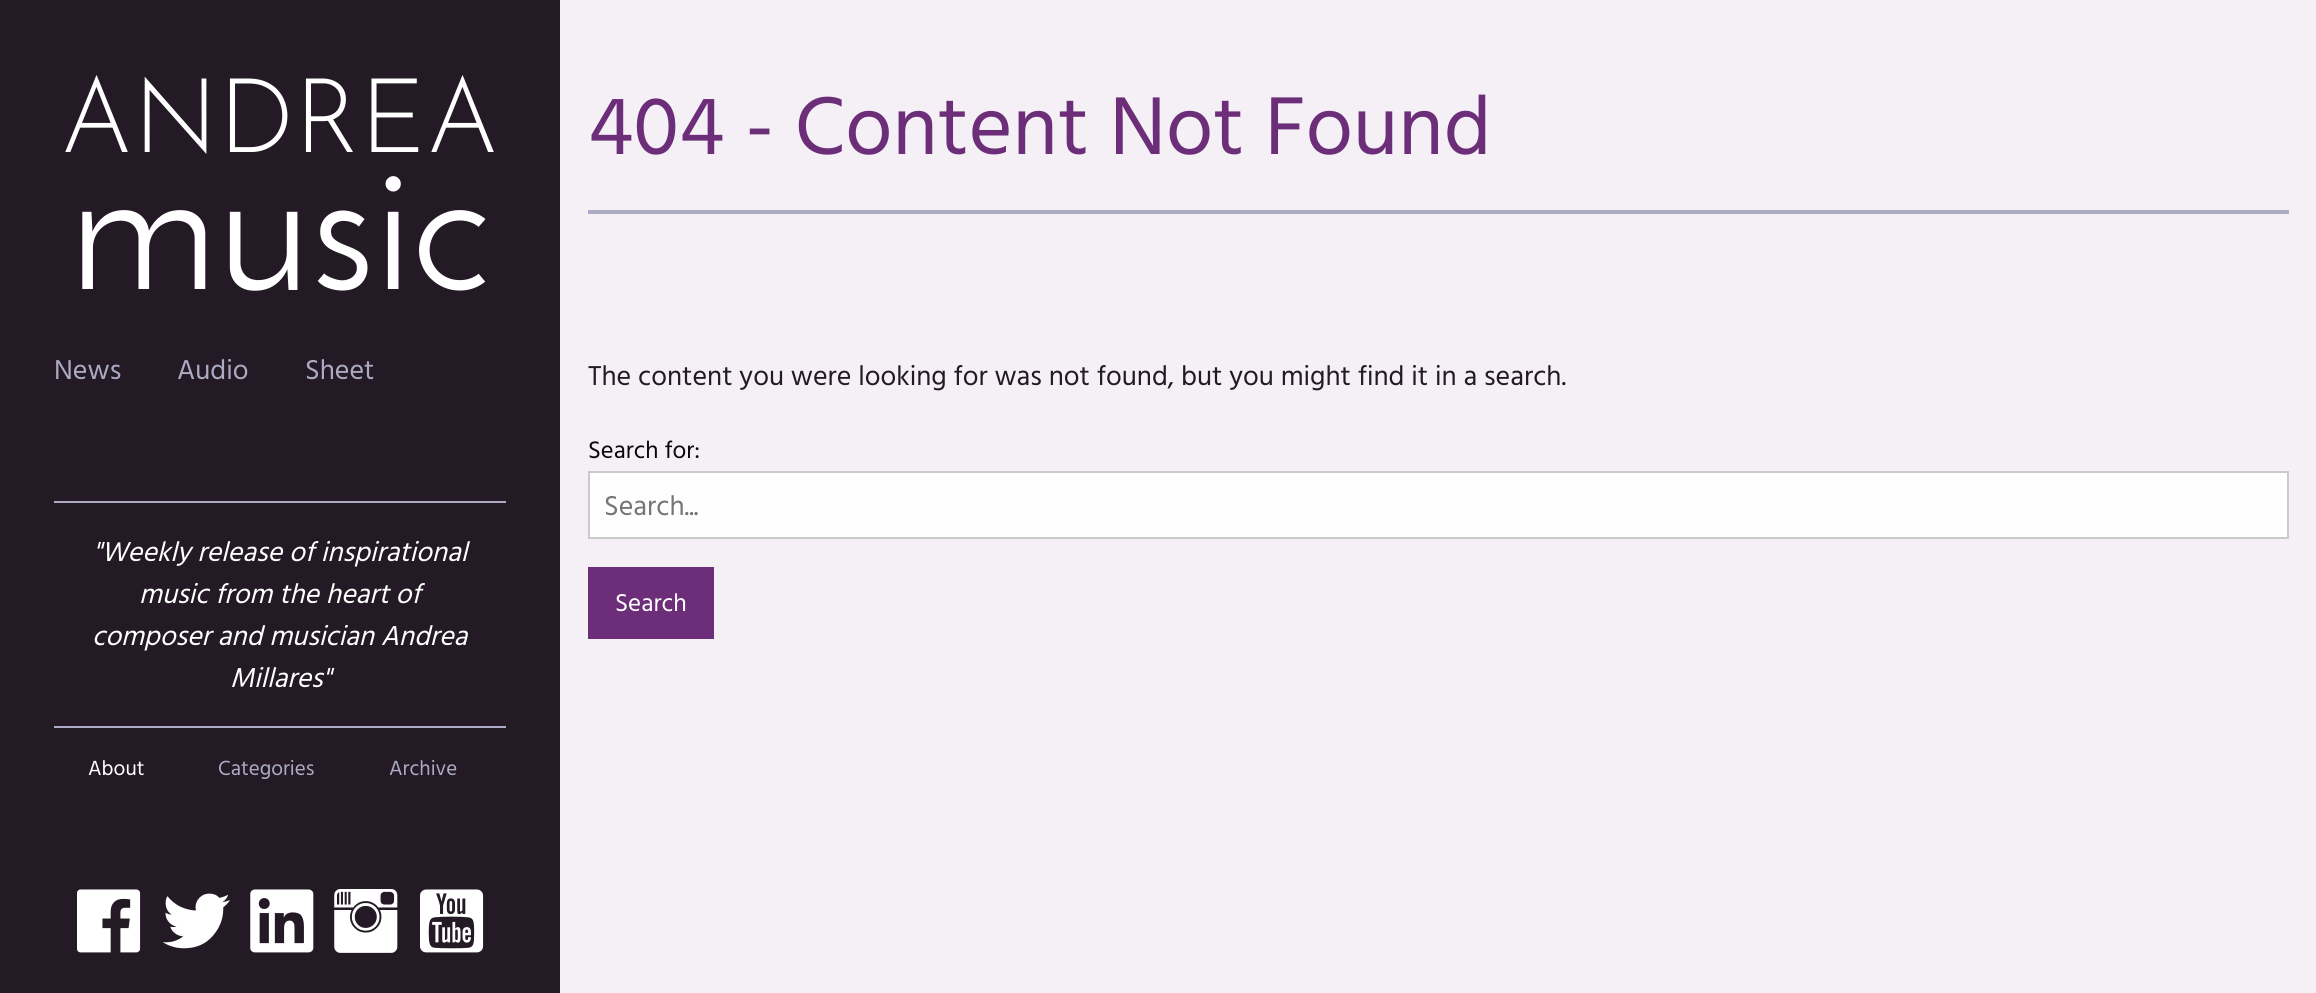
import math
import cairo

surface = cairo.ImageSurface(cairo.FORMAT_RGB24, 2316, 993)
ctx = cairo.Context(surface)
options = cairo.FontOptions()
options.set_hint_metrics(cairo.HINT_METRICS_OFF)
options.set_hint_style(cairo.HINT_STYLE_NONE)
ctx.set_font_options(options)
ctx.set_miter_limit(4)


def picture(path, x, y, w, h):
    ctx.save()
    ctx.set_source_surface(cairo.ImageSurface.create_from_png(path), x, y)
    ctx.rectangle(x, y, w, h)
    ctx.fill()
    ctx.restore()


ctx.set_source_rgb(0.141, 0.102, 0.145)
ctx.paint()
ctx.select_font_face("Josefin Sans Light")
ctx.set_font_size(103.5)
ctx.set_source_rgb(1, 1, 1)
ctx.move_to(60, 152)
ctx.show_text("ANDREA")
ctx.select_font_face("Josefin Sans")
ctx.set_font_size(193)
ctx.move_to(69, 289)
ctx.show_text("music")
ctx.select_font_face("Hind Vadodara")
ctx.set_font_size(28)
ctx.set_source_rgb(0.675, 0.671, 0.765)
ctx.move_to(54, 379)
ctx.show_text("News")
ctx.move_to(177, 379)
ctx.show_text("Audio")
ctx.move_to(305, 379)
ctx.show_text("Sheet")
ctx.rectangle(54, 501, 452, 2)
ctx.fill()
ctx.select_font_face("Hind Vadodara", cairo.FONT_SLANT_ITALIC)
ctx.set_source_rgb(1, 1, 1)
ctx.move_to(93, 561)
ctx.show_text("\"Weekly release of inspirational")
ctx.move_to(139, 603)
ctx.show_text("music from the heart of")
ctx.move_to(92, 645)
ctx.show_text("composer and musician Andrea")
ctx.move_to(230, 687)
ctx.show_text("Millares\"")
ctx.set_source_rgb(0.675, 0.671, 0.765)
ctx.rectangle(54, 726, 452, 2)
ctx.fill()
ctx.select_font_face("Hind Vadodara")
ctx.set_font_size(21)
ctx.set_source_rgb(1, 1, 1)
ctx.move_to(88, 775)
ctx.show_text("About")
ctx.set_source_rgb(0.675, 0.671, 0.765)
ctx.move_to(218, 775)
ctx.show_text("Categories")
ctx.move_to(389, 775)
ctx.show_text("Archive")
picture("img1.png", 77, 889, 64, 64)
picture("img2.png", 163, 893, 67, 56)
picture("img3.png", 250, 889, 64, 64)
picture("img4.png", 334, 889, 64, 64)
picture("img5.png", 420, 889, 64, 64)
ctx.set_source_rgb(0.957, 0.941, 0.961)
ctx.rectangle(560, 0, 1756, 993)
ctx.fill()
ctx.set_source_rgb(0.675, 0.671, 0.765)
ctx.rectangle(588, 210, 1701, 4)
ctx.fill()
ctx.set_font_size(84)
ctx.set_source_rgb(0.424, 0.18, 0.475)
ctx.move_to(588, 154)
ctx.show_text("404 - Content Not Found")
ctx.set_font_size(28)
ctx.set_source_rgb(0.141, 0.102, 0.145)
ctx.move_to(588, 385)
ctx.show_text("The content you were looking for was not found, but you might find it in a search.")
ctx.set_font_size(24.5)
ctx.set_source_rgb(0.039, 0.039, 0.039)
ctx.move_to(588, 458)
ctx.show_text("Search for:")
ctx.set_source_rgb(0.996, 0.996, 0.996)
ctx.rectangle(589, 472, 1699, 66)
ctx.fill_preserve()
ctx.set_source_rgb(0.792, 0.792, 0.792)
ctx.stroke()
ctx.set_font_size(28)
ctx.set_source_rgb(0.459, 0.459, 0.459)
ctx.move_to(604, 515)
ctx.show_text("Search...")
ctx.set_source_rgb(0.424, 0.18, 0.475)
ctx.rectangle(588, 567, 126, 72)
ctx.fill()
ctx.set_font_size(25)
ctx.set_source_rgb(1, 1, 1)
ctx.move_to(615, 611)
ctx.show_text("Search")
surface.write_to_png("page.png")
